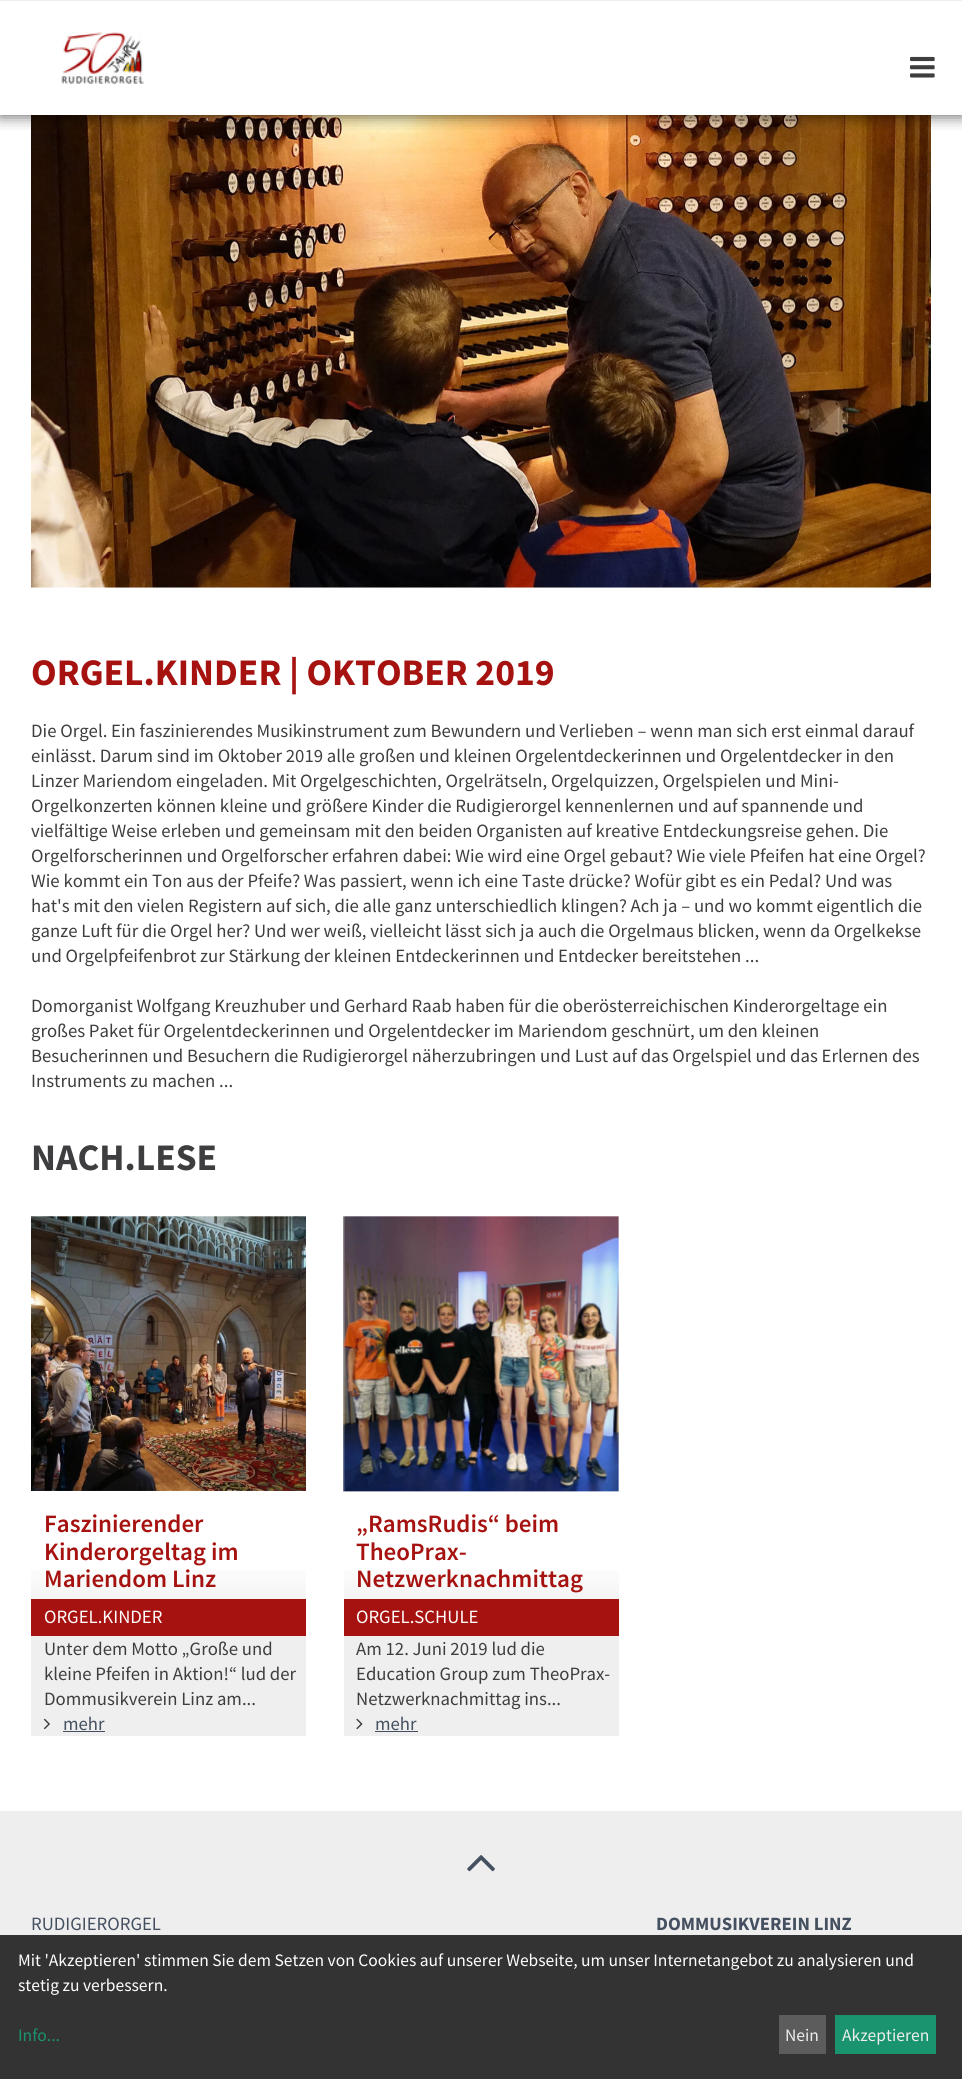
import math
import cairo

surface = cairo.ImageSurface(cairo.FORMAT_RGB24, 962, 2079)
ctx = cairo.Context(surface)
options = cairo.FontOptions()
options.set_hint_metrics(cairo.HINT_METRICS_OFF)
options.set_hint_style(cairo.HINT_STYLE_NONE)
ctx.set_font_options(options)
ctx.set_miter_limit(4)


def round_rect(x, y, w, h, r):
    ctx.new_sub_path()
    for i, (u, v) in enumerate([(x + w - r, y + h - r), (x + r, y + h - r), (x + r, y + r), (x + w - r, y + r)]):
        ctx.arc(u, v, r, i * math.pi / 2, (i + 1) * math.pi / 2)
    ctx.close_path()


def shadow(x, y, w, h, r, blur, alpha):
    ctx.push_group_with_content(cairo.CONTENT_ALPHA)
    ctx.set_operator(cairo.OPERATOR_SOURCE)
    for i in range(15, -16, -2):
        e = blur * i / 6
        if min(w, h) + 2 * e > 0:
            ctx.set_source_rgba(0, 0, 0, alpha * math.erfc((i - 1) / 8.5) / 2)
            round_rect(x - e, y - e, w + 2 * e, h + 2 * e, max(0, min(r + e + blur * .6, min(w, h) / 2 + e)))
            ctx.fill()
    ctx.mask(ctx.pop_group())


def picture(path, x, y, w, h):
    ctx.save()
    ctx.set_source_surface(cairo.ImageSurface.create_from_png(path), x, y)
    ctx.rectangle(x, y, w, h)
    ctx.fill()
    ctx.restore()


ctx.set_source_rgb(1, 1, 1)
ctx.paint()
picture("img3.png", 31, 115, 900, 473)
ctx.save()
ctx.rectangle(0, 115, 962, 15)
ctx.clip()
ctx.set_source_rgb(0, 0, 0)
shadow(0, 0, 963, 115, 0, 8, 0.7)
ctx.restore()
ctx.set_source_rgb(0.933, 0.933, 0.933)
ctx.rectangle(0, 0, 962, 1)
ctx.fill()
picture("img1.png", 61, 32, 83, 52)
picture("img2.png", 910, 56, 25, 22)
ctx.select_font_face("Source Sans Pro", cairo.FONT_SLANT_NORMAL, cairo.FONT_WEIGHT_BOLD)
ctx.set_font_size(37.5)
ctx.set_source_rgb(0.651, 0.071, 0.059)
ctx.move_to(31, 685)
ctx.show_text("ORGEL.KINDER | OKTOBER 2019")
ctx.select_font_face("Source Sans Pro")
ctx.set_font_size(18.75)
ctx.set_source_rgb(0.243, 0.243, 0.251)
ctx.move_to(31, 737)
ctx.show_text("Die Orgel. Ein faszinierendes Musikinstrument zum Bewundern und Verlieben – wenn man sich erst einmal darauf")
ctx.move_to(31, 762)
ctx.show_text("einlässt. Darum sind im Oktober 2019 alle großen und kleinen Orgelentdeckerinnen und Orgelentdecker in den")
ctx.move_to(31, 787)
ctx.show_text("Linzer Mariendom eingeladen. Mit Orgelgeschichten, Orgelrätseln, Orgelquizzen, Orgelspielen und Mini-")
ctx.move_to(31, 812)
ctx.show_text("Orgelkonzerten können kleine und größere Kinder die Rudigierorgel kennenlernen und auf spannende und")
ctx.move_to(31, 837)
ctx.show_text("vielfältige Weise erleben und gemeinsam mit den beiden Organisten auf kreative Entdeckungsreise gehen. Die")
ctx.move_to(31, 862)
ctx.show_text("Orgelforscherinnen und Orgelforscher erfahren dabei: Wie wird eine Orgel gebaut? Wie viele Pfeifen hat eine Orgel?")
ctx.move_to(31, 887)
ctx.show_text("Wie kommt ein Ton aus der Pfeife? Was passiert, wenn ich eine Taste drücke? Wofür gibt es ein Pedal? Und was")
ctx.move_to(31, 912)
ctx.show_text("hat's mit den vielen Registern auf sich, die alle ganz unterschiedlich klingen? Ach ja – und wo kommt eigentlich die")
ctx.move_to(31, 937)
ctx.show_text("ganze Luft für die Orgel her? Und wer weiß, vielleicht lässt sich ja auch die Orgelmaus blicken, wenn da Orgelkekse")
ctx.move_to(31, 962)
ctx.show_text("und Orgelpfeifenbrot zur Stärkung der kleinen Entdeckerinnen und Entdecker bereitstehen ...")
ctx.move_to(31, 1012)
ctx.show_text("Domorganist Wolfgang Kreuzhuber und Gerhard Raab haben für die oberösterreichischen Kinderorgeltage ein")
ctx.move_to(31, 1037)
ctx.show_text("großes Paket für Orgelentdeckerinnen und Orgelentdecker im Mariendom geschnürt, um den kleinen")
ctx.move_to(31, 1062)
ctx.show_text("Besucherinnen und Besuchern die Rudigierorgel näherzubringen und Lust auf das Orgelspiel und das Erlernen des")
ctx.move_to(31, 1087)
ctx.show_text("Instruments zu machen ...")
ctx.select_font_face("Source Sans Pro", cairo.FONT_SLANT_NORMAL, cairo.FONT_WEIGHT_BOLD)
ctx.set_font_size(37.5)
ctx.move_to(31, 1170)
ctx.show_text("NACH.LESE")
picture("img4.png", 31, 1216, 275, 275)
gradient = cairo.LinearGradient(169, 1510, 169, 2030)
gradient.add_color_stop_rgba(0.1, 1, 1, 1, 1)
gradient.add_color_stop_rgba(0.2, 0.937, 0.937, 0.937, 1)
ctx.set_source(gradient)
ctx.rectangle(31, 1570, 275, 166)
ctx.fill()
ctx.select_font_face("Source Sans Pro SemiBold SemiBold")
ctx.set_font_size(25)
ctx.set_source_rgb(0.651, 0.071, 0.059)
ctx.move_to(44, 1532)
ctx.show_text("Faszinierender")
ctx.move_to(44, 1560)
ctx.show_text("Kinderorgeltag im")
ctx.move_to(44, 1587)
ctx.show_text("Mariendom Linz")
ctx.rectangle(31, 1599, 275, 37)
ctx.fill()
ctx.select_font_face("Source Sans Pro")
ctx.set_font_size(18.75)
ctx.set_source_rgb(1, 1, 1)
ctx.move_to(44, 1623)
ctx.show_text("ORGEL.KINDER")
ctx.set_source_rgb(0.243, 0.243, 0.251)
ctx.move_to(44, 1655)
ctx.show_text("Unter dem Motto „Große und")
ctx.move_to(44, 1680)
ctx.show_text("kleine Pfeifen in Aktion!“ lud der")
ctx.move_to(44, 1705)
ctx.show_text("Dommusikverein Linz am...")
picture("img5.png", 43, 1718, 7, 12)
ctx.set_source_rgb(0.267, 0.314, 0.376)
ctx.move_to(63, 1730)
ctx.show_text("mehr")
ctx.rectangle(63, 1731, 42, 1)
ctx.fill()
picture("img6.png", 343, 1216, 276, 276)
gradient = cairo.LinearGradient(481, 1510, 481, 2030)
gradient.add_color_stop_rgba(0.1, 1, 1, 1, 1)
gradient.add_color_stop_rgba(0.2, 0.937, 0.937, 0.937, 1)
ctx.set_source(gradient)
ctx.rectangle(344, 1570, 275, 166)
ctx.fill()
ctx.select_font_face("Source Sans Pro SemiBold SemiBold")
ctx.set_font_size(25)
ctx.set_source_rgb(0.651, 0.071, 0.059)
ctx.move_to(356, 1532)
ctx.show_text("„RamsRudis“ beim")
ctx.move_to(356, 1560)
ctx.show_text("TheoPrax-")
ctx.move_to(356, 1587)
ctx.show_text("Netzwerknachmittag")
ctx.rectangle(344, 1599, 275, 37)
ctx.fill()
ctx.select_font_face("Source Sans Pro")
ctx.set_font_size(18.75)
ctx.set_source_rgb(1, 1, 1)
ctx.move_to(356, 1623)
ctx.show_text("ORGEL.SCHULE")
ctx.set_source_rgb(0.243, 0.243, 0.251)
ctx.move_to(356, 1655)
ctx.show_text("Am 12. Juni 2019 lud die")
ctx.move_to(356, 1680)
ctx.show_text("Education Group zum TheoPrax-")
ctx.move_to(356, 1705)
ctx.show_text("Netzwerknachmittag ins...")
picture("img7.png", 356, 1718, 7, 12)
ctx.set_source_rgb(0.267, 0.314, 0.376)
ctx.move_to(375, 1730)
ctx.show_text("mehr")
ctx.rectangle(375, 1731, 43, 1)
ctx.fill()
ctx.set_source_rgb(0.933, 0.933, 0.933)
ctx.rectangle(0, 1811, 962, 124)
ctx.fill()
picture("img8.png", 467, 1855, 28, 17)
ctx.set_source_rgb(0.267, 0.314, 0.376)
ctx.move_to(31, 1930)
ctx.show_text("RUDIGIERORGEL")
ctx.select_font_face("Source Sans Pro", cairo.FONT_SLANT_NORMAL, cairo.FONT_WEIGHT_BOLD)
ctx.move_to(656, 1930)
ctx.show_text("DOMMUSIKVEREIN LINZ")
ctx.set_source_rgb(0.2, 0.2, 0.2)
ctx.rectangle(0, 1935, 962, 144)
ctx.fill()
ctx.select_font_face("Source Sans Pro")
ctx.set_font_size(17.5)
ctx.set_source_rgb(1, 1, 1)
ctx.move_to(18, 1966)
ctx.show_text("Mit 'Akzeptieren' stimmen Sie dem Setzen von Cookies auf unserer Webseite, um unser Internetangebot zu analysieren und")
ctx.move_to(18, 1991)
ctx.show_text("stetig zu verbessern.")
ctx.set_source_rgb(0.102, 0.576, 0.435)
ctx.move_to(18, 2041)
ctx.show_text("Info...")
ctx.set_source_rgb(0.361, 0.361, 0.361)
ctx.rectangle(779, 2015, 47, 39)
ctx.fill()
ctx.set_source_rgb(0.933, 0.933, 0.933)
ctx.move_to(785, 2041)
ctx.show_text("Nein")
ctx.set_source_rgb(0.102, 0.576, 0.435)
ctx.rectangle(835, 2015, 101, 39)
ctx.fill()
ctx.set_source_rgb(0.933, 0.933, 0.933)
ctx.move_to(842, 2041)
ctx.show_text("Akzeptieren")
surface.write_to_png("page.png")
